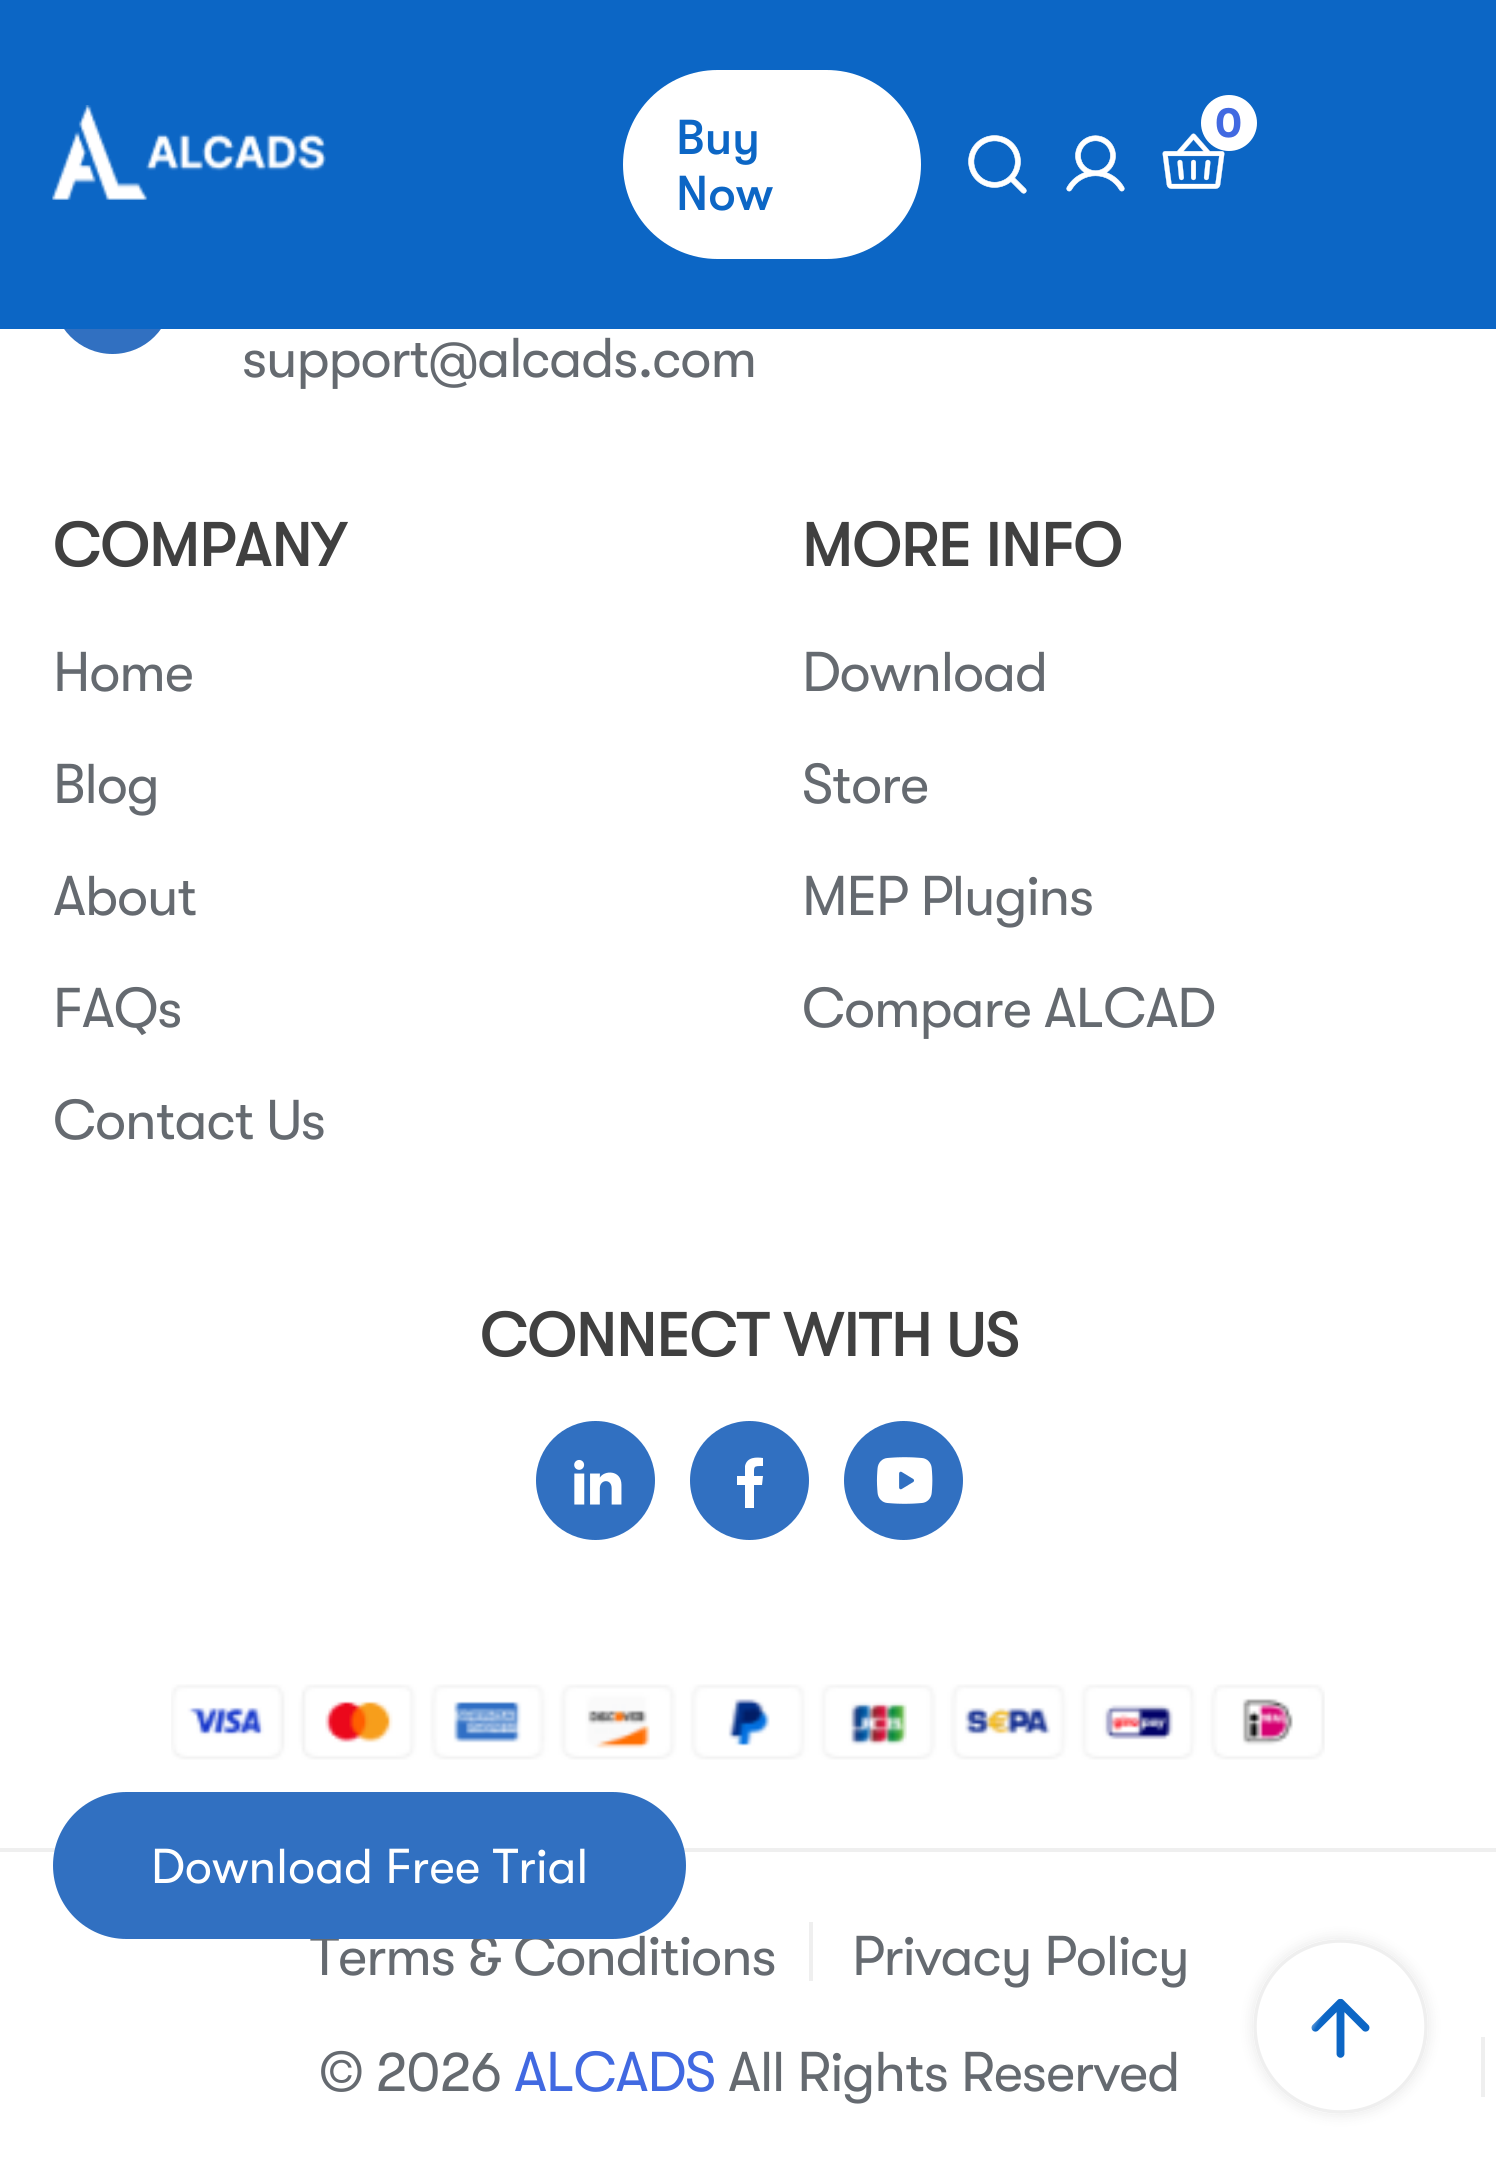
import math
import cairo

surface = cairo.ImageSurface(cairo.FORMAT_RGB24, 1496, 2182)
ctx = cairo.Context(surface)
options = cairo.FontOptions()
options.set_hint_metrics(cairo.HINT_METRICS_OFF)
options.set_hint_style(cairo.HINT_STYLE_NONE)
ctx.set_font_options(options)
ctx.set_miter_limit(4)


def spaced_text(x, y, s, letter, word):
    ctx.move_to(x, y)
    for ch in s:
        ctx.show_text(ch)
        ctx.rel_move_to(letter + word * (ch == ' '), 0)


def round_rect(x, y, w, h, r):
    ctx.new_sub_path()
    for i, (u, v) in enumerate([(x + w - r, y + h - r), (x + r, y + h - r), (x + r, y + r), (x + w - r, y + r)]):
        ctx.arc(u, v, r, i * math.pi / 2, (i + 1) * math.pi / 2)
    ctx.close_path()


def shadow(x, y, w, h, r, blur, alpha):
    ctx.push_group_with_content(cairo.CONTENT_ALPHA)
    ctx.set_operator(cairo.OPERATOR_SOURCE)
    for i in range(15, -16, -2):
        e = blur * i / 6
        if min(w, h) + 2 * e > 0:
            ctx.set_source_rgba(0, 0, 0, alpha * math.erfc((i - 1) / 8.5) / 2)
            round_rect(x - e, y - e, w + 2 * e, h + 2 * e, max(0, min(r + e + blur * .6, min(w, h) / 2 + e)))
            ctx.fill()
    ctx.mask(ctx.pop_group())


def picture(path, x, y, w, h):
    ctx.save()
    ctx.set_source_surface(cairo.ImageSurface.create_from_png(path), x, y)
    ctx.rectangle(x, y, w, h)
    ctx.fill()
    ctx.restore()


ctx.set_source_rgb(1, 1, 1)
ctx.paint()
ctx.set_source_rgb(0.192, 0.439, 0.757)
ctx.arc(112.5, 294.5, 59.5, 0, 2 * math.pi)
ctx.fill()
ctx.set_source_rgb(0.047, 0.4, 0.773)
ctx.rectangle(0, 0, 1496, 329)
ctx.fill()
picture("img1.png", 52, 105, 274, 95)
ctx.set_source_rgb(1, 1, 1)
round_rect(625, 72, 294, 185, 92.5)
ctx.fill_preserve()
ctx.set_line_width(4)
ctx.stroke()
ctx.select_font_face("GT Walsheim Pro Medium")
ctx.set_font_size(49)
ctx.set_source_rgb(0.047, 0.4, 0.773)
ctx.move_to(676, 154)
ctx.show_text("Buy")
ctx.move_to(676, 210)
ctx.show_text("Now")
picture("img2.png", 1162, 133, 63, 56)
ctx.set_source_rgb(1, 1, 1)
ctx.arc(1229, 123, 28, 0, 2 * math.pi)
ctx.fill()
ctx.select_font_face("GT Walsheim Pro", cairo.FONT_SLANT_NORMAL, cairo.FONT_WEIGHT_BOLD)
ctx.set_font_size(42)
ctx.set_source_rgb(0.255, 0.412, 0.882)
ctx.move_to(1215, 137)
ctx.show_text("0")
picture("img3.png", 968, 135, 59, 59)
picture("img4.png", 1066, 135, 59, 57)
ctx.select_font_face("GT Walsheim Pro")
ctx.set_font_size(56)
ctx.set_source_rgb(0.396, 0.416, 0.439)
spaced_text(242, 377, "support@alcads.com", -1.1, 0)
ctx.select_font_face("GT Walsheim Pro Medium")
ctx.set_font_size(63)
ctx.set_source_rgb(0.251, 0.251, 0.251)
spaced_text(53, 566, "COMPANY", -1.25, 0)
ctx.select_font_face("GT Walsheim Pro")
ctx.set_font_size(56)
ctx.set_source_rgb(0.396, 0.416, 0.439)
spaced_text(53, 691, "Home", -1.1, 0)
spaced_text(53, 803, "Blog", -1.1, 0)
spaced_text(53, 915, "About", -1.1, 0)
spaced_text(53, 1027, "FAQs", -1.1, 0)
spaced_text(53, 1139, "Contact Us", -1.1, 0)
ctx.select_font_face("GT Walsheim Pro Medium")
ctx.set_font_size(63)
ctx.set_source_rgb(0.251, 0.251, 0.251)
spaced_text(802, 566, "MORE INFO", -1.25, 0)
ctx.select_font_face("GT Walsheim Pro")
ctx.set_font_size(56)
ctx.set_source_rgb(0.396, 0.416, 0.439)
spaced_text(802, 691, "Download", -1.1, 0)
spaced_text(802, 803, "Store", -1.1, 0)
spaced_text(802, 915, "MEP Plugins", -1.1, 0)
spaced_text(802, 1027, "Compare ALCAD", -1.1, 0)
ctx.select_font_face("GT Walsheim Pro Medium")
ctx.set_font_size(63)
ctx.set_source_rgb(0.251, 0.251, 0.251)
spaced_text(480, 1356, "CONNECT WITH US", -1.25, 0)
ctx.set_source_rgb(0.192, 0.439, 0.757)
ctx.new_path()
ctx.arc(595.5, 1480.5, 59.5, 0, 2 * math.pi)
ctx.fill()
picture("img5.png", 574, 1459, 48, 46)
ctx.arc(749.5, 1480.5, 59.5, 0, 2 * math.pi)
ctx.fill()
ctx.set_source_rgb(1, 1, 1)
ctx.new_path()
ctx.move_to(754, 1508)
ctx.line_to(754, 1485)
ctx.line_to(762, 1485)
ctx.line_to(763, 1476)
ctx.line_to(754, 1476)
ctx.curve_to(754, 1466, 753, 1466, 763, 1466)
ctx.line_to(763, 1458)
ctx.curve_to(756, 1457, 747, 1457, 745, 1466)
ctx.line_to(745, 1476)
ctx.line_to(737, 1476)
ctx.line_to(737, 1485)
ctx.line_to(745, 1485)
ctx.line_to(745, 1508)
ctx.close_path()
ctx.fill()
ctx.set_source_rgb(0.192, 0.439, 0.757)
ctx.arc(903.5, 1480.5, 59.5, 0, 2 * math.pi)
ctx.fill()
picture("img6.png", 876, 1457, 57, 47)
picture("img7.png", 171, 1684, 1154, 76)
ctx.set_source_rgb(0.937, 0.937, 0.937)
ctx.rectangle(0, 1848, 1496, 4)
ctx.fill()
ctx.select_font_face("GT Walsheim Pro")
ctx.set_font_size(56)
ctx.set_source_rgb(0.396, 0.416, 0.439)
spaced_text(310, 1975, "Terms & Conditions", -1.1, 0)
ctx.set_source_rgb(0.937, 0.937, 0.937)
ctx.rectangle(809, 1922, 4, 59)
ctx.fill()
ctx.set_source_rgb(0.396, 0.416, 0.439)
spaced_text(852, 1975, "Privacy Policy", -1.1, 0)
spaced_text(319, 2091, "© 2026", -1.1, 0)
ctx.set_source_rgb(0.255, 0.412, 0.882)
spaced_text(514, 2091, "ALCADS", -1.1, 0)
ctx.set_source_rgb(0.396, 0.416, 0.439)
spaced_text(728, 2091, "All Rights Reserved", -1.1, 0)
ctx.set_source_rgb(0.937, 0.937, 0.937)
ctx.rectangle(1481, 2037, 4, 60)
ctx.fill()
ctx.set_source_rgb(0.192, 0.439, 0.757)
round_rect(55, 1794, 629, 143, 71.5)
ctx.fill_preserve()
ctx.stroke()
ctx.set_font_size(49)
ctx.set_source_rgb(1, 1, 1)
ctx.move_to(151, 1883)
ctx.show_text("Download Free Trial")
ctx.set_source_rgb(0, 0, 0)
shadow(1253, 1939, 175, 175, 87.5, 7, 0.1)
ctx.set_source_rgb(1, 1, 1)
ctx.new_path()
ctx.move_to(1253, 2026)
ctx.curve_to(1253, 1978, 1292, 1939, 1340, 1939)
ctx.curve_to(1389, 1939, 1428, 1978, 1428, 2026)
ctx.curve_to(1428, 2075, 1389, 2114, 1340, 2114)
ctx.curve_to(1292, 2114, 1253, 2075, 1253, 2026)
ctx.close_path()
ctx.fill()
ctx.new_path()
ctx.move_to(1255, 2026.5)
ctx.curve_to(1255, 1979, 1293, 1941, 1340.5, 1941)
ctx.curve_to(1388, 1941, 1426, 1979, 1426, 2026.5)
ctx.curve_to(1426, 2074, 1388, 2112, 1340.5, 2112)
ctx.curve_to(1293, 2112, 1255, 2074, 1255, 2026.5)
ctx.close_path()
ctx.set_source_rgb(0.937, 0.937, 0.937)
ctx.set_line_width(3.5)
ctx.stroke()
picture("img8.png", 1311, 1998, 59, 60)
surface.write_to_png("page.png")
